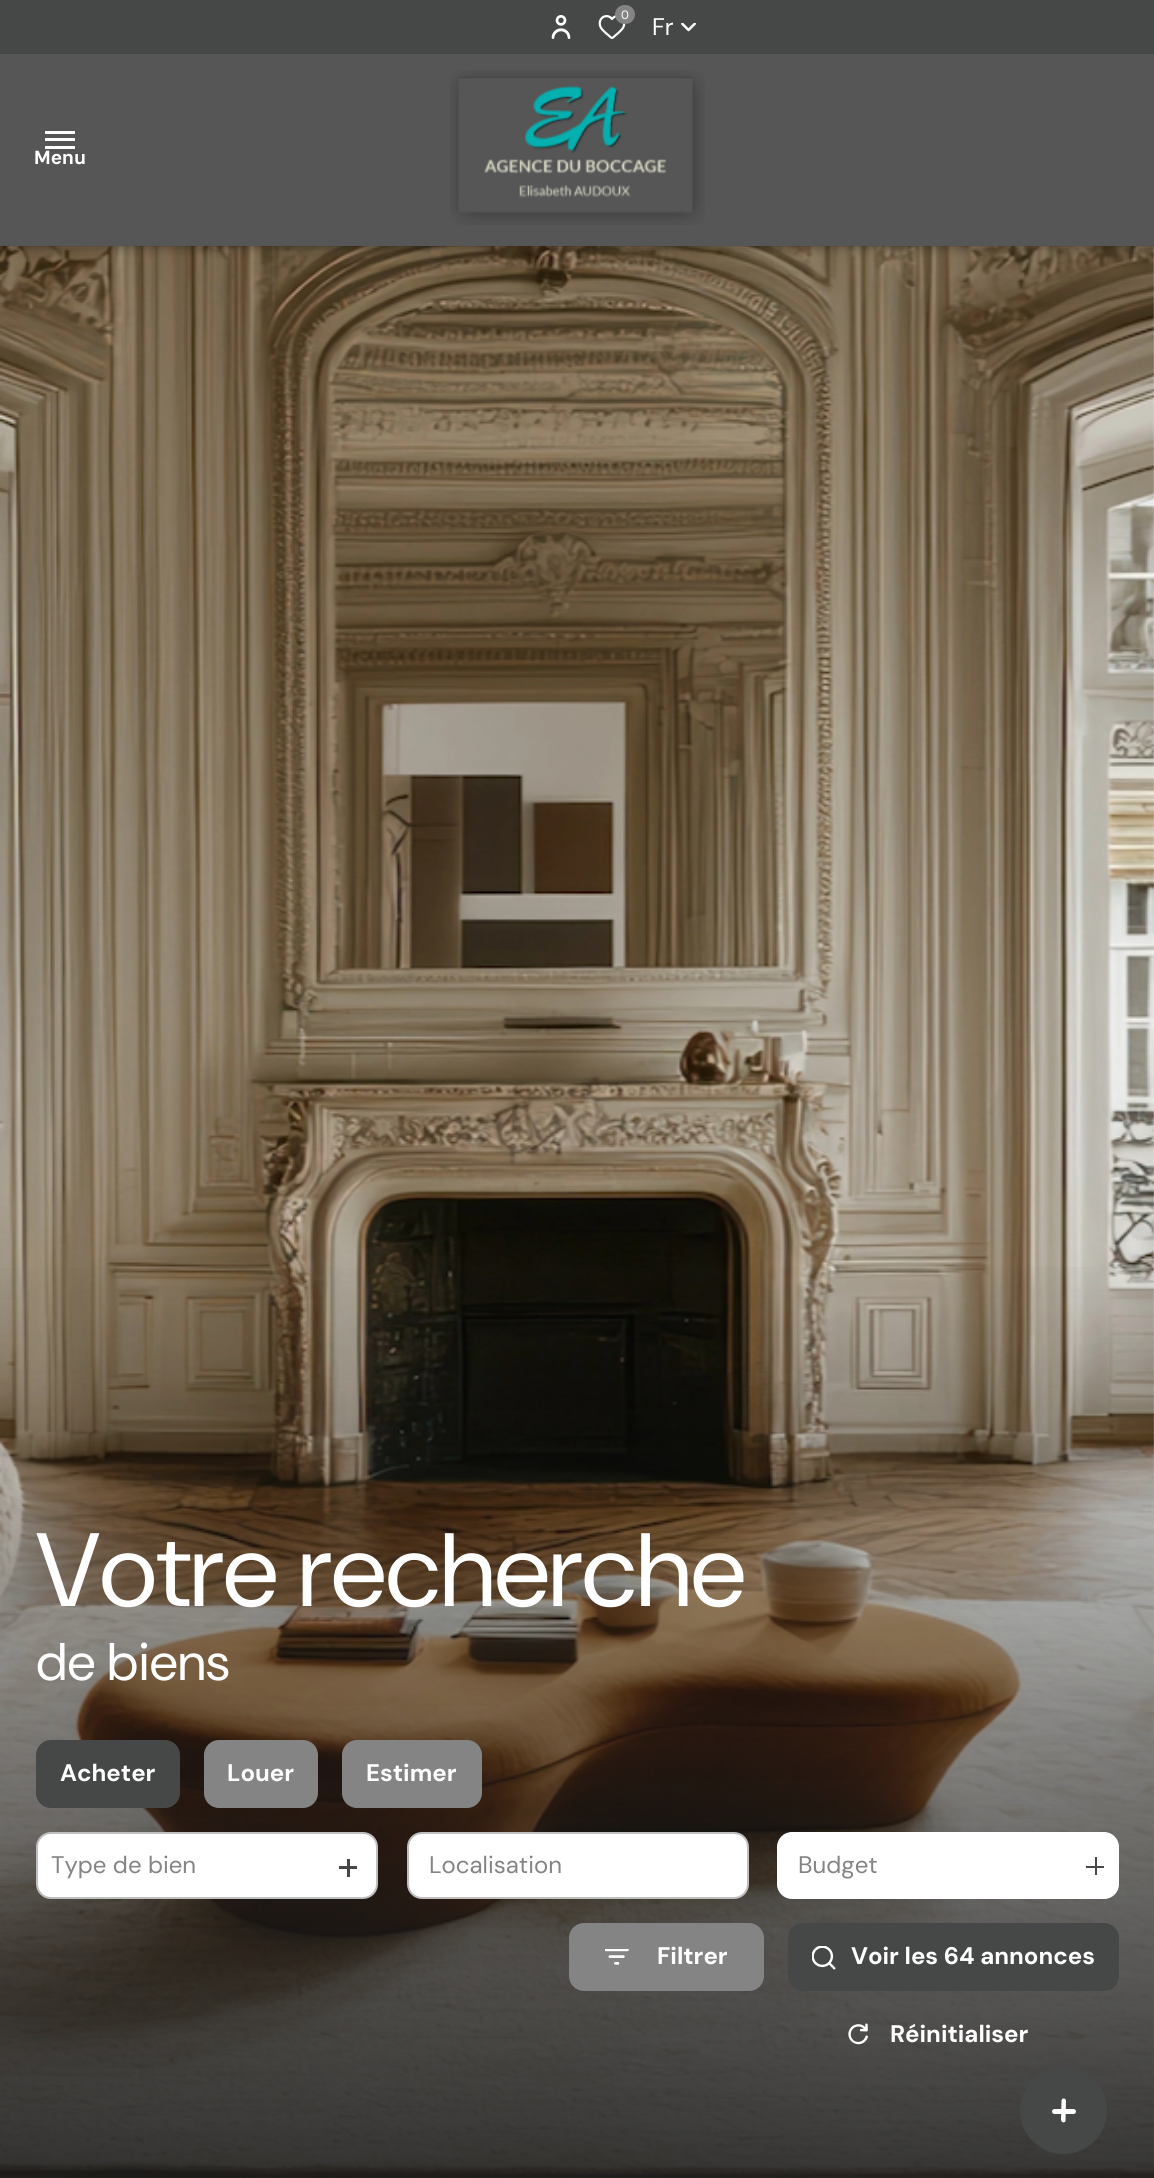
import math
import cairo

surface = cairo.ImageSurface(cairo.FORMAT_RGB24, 1154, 2178)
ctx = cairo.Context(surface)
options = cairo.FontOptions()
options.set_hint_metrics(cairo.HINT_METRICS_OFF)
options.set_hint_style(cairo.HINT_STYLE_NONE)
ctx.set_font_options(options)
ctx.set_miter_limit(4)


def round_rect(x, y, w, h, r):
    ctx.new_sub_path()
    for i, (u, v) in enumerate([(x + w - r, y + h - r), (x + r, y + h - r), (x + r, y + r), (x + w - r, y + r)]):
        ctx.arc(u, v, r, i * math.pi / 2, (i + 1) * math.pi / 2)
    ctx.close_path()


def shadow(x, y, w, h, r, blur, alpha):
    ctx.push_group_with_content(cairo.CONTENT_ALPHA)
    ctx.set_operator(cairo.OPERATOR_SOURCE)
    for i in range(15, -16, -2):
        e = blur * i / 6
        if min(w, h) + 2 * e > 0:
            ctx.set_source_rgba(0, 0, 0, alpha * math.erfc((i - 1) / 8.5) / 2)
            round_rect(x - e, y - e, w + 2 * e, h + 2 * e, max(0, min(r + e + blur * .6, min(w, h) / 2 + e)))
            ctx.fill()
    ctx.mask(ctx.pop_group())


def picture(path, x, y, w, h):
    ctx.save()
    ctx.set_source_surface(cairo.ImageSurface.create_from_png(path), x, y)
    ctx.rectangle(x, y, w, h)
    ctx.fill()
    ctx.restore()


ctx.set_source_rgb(1, 1, 1)
ctx.paint()
picture("img5.png", 0, 246, 1154, 1932)
ctx.set_source_rgb(0.039, 0.039, 0.039)
shadow(0, 54, 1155, 192, 0, 6, 0.5)
ctx.set_source_rgb(0.275, 0.278, 0.278)
ctx.rectangle(0, 0, 1154, 54)
ctx.fill()
picture("img1.png", 551, 15, 20, 24)
picture("img2.png", 598, 15, 28, 24)
ctx.set_source_rgb(0.518, 0.518, 0.518)
round_rect(615, 5, 20, 19, 9.5)
ctx.fill()
ctx.select_font_face("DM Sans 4")
ctx.set_font_size(12)
ctx.set_source_rgb(1, 1, 1)
ctx.move_to(621, 19)
ctx.show_text("0")
ctx.select_font_face("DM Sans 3")
ctx.set_font_size(24)
ctx.move_to(652, 35)
ctx.show_text("Fr")
picture("img3.png", 681, 23, 15, 9)
ctx.set_source_rgb(0.337, 0.337, 0.337)
ctx.rectangle(0, 54, 1154, 192)
ctx.fill()
ctx.set_source_rgb(1, 1, 1)
ctx.rectangle(45, 131, 30, 3)
ctx.fill()
ctx.rectangle(45, 138, 30, 3)
ctx.fill()
ctx.rectangle(45, 146, 30, 3)
ctx.fill()
ctx.select_font_face("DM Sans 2", cairo.FONT_SLANT_NORMAL, cairo.FONT_WEIGHT_BOLD)
ctx.set_font_size(19)
ctx.move_to(34, 164)
ctx.show_text("Menu")
picture("img4.png", 450, 70, 255, 155)
gradient = cairo.LinearGradient(577, 1244, 578, 2178)
gradient.add_color_stop_rgba(0, 0.118, 0.118, 0.118, 0)
gradient.add_color_stop_rgba(1, 0.118, 0.118, 0.118, 0.84)
ctx.set_source(gradient)
ctx.rectangle(0, 1267, 1154, 911)
ctx.fill()
ctx.select_font_face("DM Sans")
ctx.set_font_size(104)
ctx.set_source_rgb(1, 1, 1)
ctx.move_to(36, 1606)
ctx.show_text("Votre recherche")
ctx.select_font_face("DM Sans 2")
ctx.set_font_size(52.5)
ctx.move_to(36, 1680)
ctx.show_text("de biens")
ctx.set_source_rgb(0.275, 0.278, 0.278)
round_rect(36, 1740, 144, 68, 15)
ctx.fill()
ctx.select_font_face("DM Sans", cairo.FONT_SLANT_NORMAL, cairo.FONT_WEIGHT_BOLD)
ctx.set_font_size(24)
ctx.set_source_rgb(1, 1, 1)
ctx.move_to(60, 1781)
ctx.show_text("Acheter")
ctx.set_source_rgb(0.518, 0.518, 0.518)
round_rect(204, 1740, 114, 68, 15)
ctx.fill()
ctx.set_source_rgb(1, 1, 1)
ctx.move_to(227, 1781)
ctx.show_text("Louer")
ctx.set_source_rgb(0.518, 0.518, 0.518)
round_rect(342, 1740, 140, 68, 15)
ctx.fill()
ctx.set_source_rgb(1, 1, 1)
ctx.move_to(366, 1781)
ctx.show_text("Estimer")
round_rect(37, 1833, 340, 65, 14)
ctx.fill_preserve()
ctx.set_source_rgb(0.749, 0.749, 0.749)
ctx.stroke()
ctx.set_source_rgb(0.275, 0.278, 0.278)
ctx.rectangle(339, 1866, 18, 3)
ctx.fill()
ctx.rectangle(347, 1859, 3, 18)
ctx.fill()
ctx.select_font_face("DM Sans 3")
ctx.set_source_rgb(0.518, 0.518, 0.518)
ctx.move_to(51, 1873)
ctx.show_text("Type de bien")
ctx.set_source_rgb(1, 1, 1)
round_rect(408, 1833, 340, 65, 14)
ctx.fill_preserve()
ctx.set_source_rgb(0.749, 0.749, 0.749)
ctx.stroke()
ctx.set_source_rgb(0.518, 0.518, 0.518)
ctx.move_to(429, 1873)
ctx.show_text("Localisation")
ctx.set_source_rgb(1, 1, 1)
round_rect(777, 1832, 342, 67, 15)
ctx.fill()
ctx.set_source_rgb(0.518, 0.518, 0.518)
ctx.move_to(798, 1873)
ctx.show_text("Budget")
ctx.set_source_rgb(0.275, 0.278, 0.278)
ctx.rectangle(1095, 1857, 2, 18)
ctx.fill()
ctx.rectangle(1086, 1866, 18, 2)
ctx.fill()
ctx.set_source_rgb(0.518, 0.518, 0.518)
round_rect(569, 1923, 195, 68, 15)
ctx.fill()
picture("img6.png", 605, 1949, 24, 16)
ctx.select_font_face("DM Sans", cairo.FONT_SLANT_NORMAL, cairo.FONT_WEIGHT_BOLD)
ctx.set_source_rgb(1, 1, 1)
ctx.move_to(657, 1964)
ctx.show_text("Filtrer")
ctx.set_source_rgb(0.275, 0.278, 0.278)
round_rect(788, 1923, 331, 68, 15)
ctx.fill()
picture("img7.png", 812, 1946, 24, 24)
ctx.set_source_rgb(1, 1, 1)
ctx.move_to(851, 1964)
ctx.show_text("Voir les 64 annonces")
picture("img8.png", 848, 2023, 20, 22)
ctx.move_to(890, 2042)
ctx.show_text("Réinitialiser")
ctx.set_source_rgb(0.275, 0.278, 0.278)
ctx.new_path()
ctx.arc(1063.5, 2110.5, 43.5, 0, 2 * math.pi)
ctx.fill()
ctx.set_source_rgb(1, 1, 1)
round_rect(1052, 2109, 24, 5, 2.5)
ctx.fill()
ctx.new_path()
ctx.move_to(1066, 2101)
ctx.line_to(1065.5, 2121)
ctx.curve_to(1064.5, 2123.5, 1061.5, 2122.5, 1061, 2120)
ctx.line_to(1061.5, 2100.5)
ctx.curve_to(1062, 2097.5, 1066, 2098, 1066, 2101)
ctx.close_path()
ctx.fill()
surface.write_to_png("page.png")
